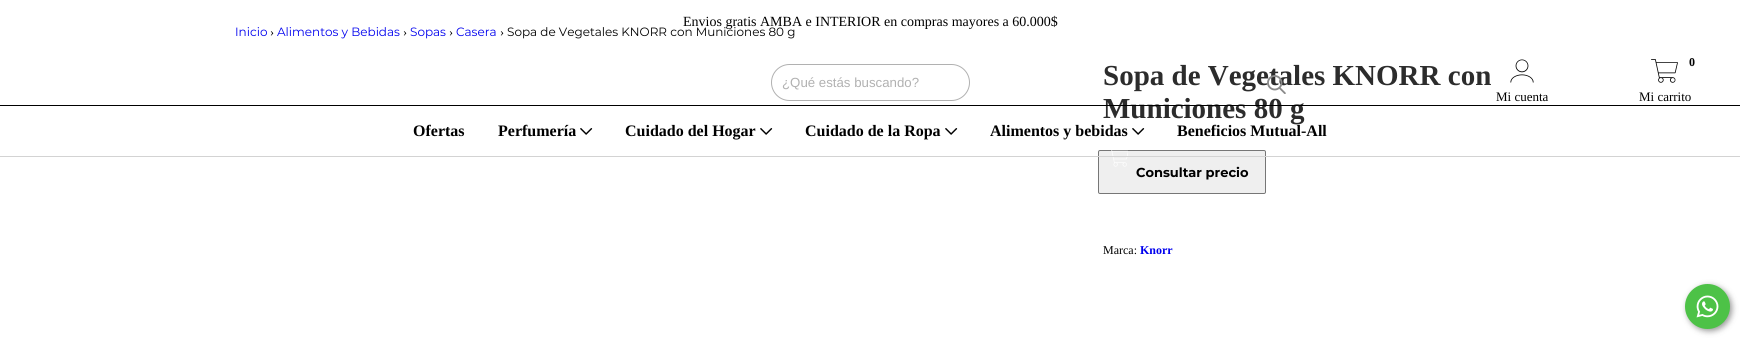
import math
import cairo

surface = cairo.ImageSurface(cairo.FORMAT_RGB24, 1740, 339)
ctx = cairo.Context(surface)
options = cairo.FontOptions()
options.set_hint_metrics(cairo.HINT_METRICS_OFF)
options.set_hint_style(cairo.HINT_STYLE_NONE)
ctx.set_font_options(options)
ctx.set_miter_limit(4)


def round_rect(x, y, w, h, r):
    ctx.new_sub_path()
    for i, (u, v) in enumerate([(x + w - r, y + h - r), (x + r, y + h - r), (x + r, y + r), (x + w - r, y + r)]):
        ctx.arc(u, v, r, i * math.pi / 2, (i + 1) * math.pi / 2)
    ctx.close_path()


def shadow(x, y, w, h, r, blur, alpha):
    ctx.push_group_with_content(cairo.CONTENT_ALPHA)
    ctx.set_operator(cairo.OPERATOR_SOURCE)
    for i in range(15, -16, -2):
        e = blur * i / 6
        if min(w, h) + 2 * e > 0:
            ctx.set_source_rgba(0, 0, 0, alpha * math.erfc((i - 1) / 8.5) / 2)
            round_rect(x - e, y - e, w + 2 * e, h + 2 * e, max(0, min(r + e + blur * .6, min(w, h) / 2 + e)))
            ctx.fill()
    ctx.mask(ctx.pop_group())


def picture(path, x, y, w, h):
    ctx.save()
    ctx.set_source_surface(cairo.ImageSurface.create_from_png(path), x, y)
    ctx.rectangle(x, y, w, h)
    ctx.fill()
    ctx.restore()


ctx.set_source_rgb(1, 1, 1)
ctx.paint()
ctx.select_font_face("Liberation Serif")
ctx.set_font_size(14)
ctx.set_source_rgb(0, 0, 0)
ctx.move_to(683, 26)
ctx.show_text("Envios gratis AMBA e INTERIOR en compras mayores a 60.000$")
ctx.set_source_rgb(0.937, 0.937, 0.937)
round_rect(1098.5, 150.5, 167, 43, 1.5)
ctx.fill_preserve()
ctx.set_source_rgb(0.463, 0.463, 0.463)
ctx.set_line_width(1)
ctx.stroke()
picture("img5.png", 1111, 150, 17, 17)
ctx.set_source_rgb(0.827, 0.827, 0.827)
ctx.rectangle(0, 156, 1740, 1)
ctx.fill()
round_rect(771.5, 64.5, 198, 36, 18)
ctx.set_source_rgb(0.694, 0.694, 0.694)
ctx.stroke()
ctx.select_font_face("Liberation Sans")
ctx.set_font_size(13.25)
ctx.move_to(782, 87)
ctx.show_text("¿Qué estás buscando?")
ctx.select_font_face("Liberation Serif", cairo.FONT_SLANT_NORMAL, cairo.FONT_WEIGHT_BOLD)
ctx.set_font_size(29)
ctx.set_source_rgb(0.173, 0.173, 0.173)
ctx.move_to(1103, 85)
ctx.show_text("Sopa de Vegetales KNORR con")
picture("img1.png", 1267, 75, 19, 19)
picture("img2.png", 1510, 59, 24, 24)
ctx.select_font_face("Liberation Serif")
ctx.set_font_size(13)
ctx.set_source_rgb(0, 0, 0)
ctx.move_to(1496, 101)
ctx.show_text("Mi cuenta")
picture("img3.png", 1651, 59, 27, 24)
ctx.select_font_face("Liberation Serif", cairo.FONT_SLANT_NORMAL, cairo.FONT_WEIGHT_BOLD)
ctx.set_font_size(12)
ctx.move_to(1689, 66)
ctx.show_text("0")
ctx.select_font_face("Liberation Serif")
ctx.set_font_size(13)
ctx.move_to(1639, 101)
ctx.show_text("Mi carrito")
ctx.select_font_face("Liberation Serif", cairo.FONT_SLANT_NORMAL, cairo.FONT_WEIGHT_BOLD)
ctx.set_font_size(29)
ctx.set_source_rgb(0.173, 0.173, 0.173)
ctx.move_to(1103, 118)
ctx.show_text("Municiones 80 g")
ctx.set_source_rgb(0, 0, 0)
ctx.rectangle(0, 105, 1740, 1)
ctx.fill()
ctx.set_font_size(16)
ctx.move_to(413, 136)
ctx.show_text("Ofertas")
ctx.move_to(498, 136)
ctx.show_text("Perfumería")
picture("img4.png", 580, 128, 13, 7)
ctx.move_to(625, 136)
ctx.show_text("Cuidado del Hogar")
picture("img4.png", 760, 128, 13, 7)
ctx.move_to(805, 136)
ctx.show_text("Cuidado de la Ropa")
picture("img4.png", 945, 128, 13, 7)
ctx.move_to(990, 136)
ctx.show_text("Alimentos y bebidas")
picture("img4.png", 1132, 128, 13, 7)
ctx.move_to(1177, 136)
ctx.show_text("Beneficios Mutual-All")
ctx.select_font_face("Montserrat")
ctx.set_font_size(12)
ctx.set_source_rgb(0, 0, 0.933)
ctx.move_to(235, 36)
ctx.show_text("Inicio")
ctx.select_font_face("Liberation Serif")
ctx.set_source_rgb(0, 0, 0)
ctx.move_to(270, 36)
ctx.show_text("›")
ctx.select_font_face("Montserrat")
ctx.set_source_rgb(0, 0, 0.933)
ctx.move_to(277, 36)
ctx.show_text("Alimentos y Bebidas")
ctx.select_font_face("Liberation Serif")
ctx.set_source_rgb(0, 0, 0)
ctx.move_to(403, 36)
ctx.show_text("›")
ctx.select_font_face("Montserrat")
ctx.set_source_rgb(0, 0, 0.933)
ctx.move_to(410, 36)
ctx.show_text("Sopas")
ctx.select_font_face("Liberation Serif")
ctx.set_source_rgb(0, 0, 0)
ctx.move_to(449, 36)
ctx.show_text("›")
ctx.select_font_face("Montserrat")
ctx.set_source_rgb(0, 0, 0.933)
ctx.move_to(456, 36)
ctx.show_text("Casera")
ctx.select_font_face("Liberation Serif")
ctx.set_source_rgb(0, 0, 0)
ctx.move_to(500, 36)
ctx.show_text("›")
ctx.select_font_face("Montserrat")
ctx.move_to(507, 36)
ctx.show_text("Sopa de Vegetales KNORR con Municiones 80 g")
ctx.select_font_face("Montserrat", cairo.FONT_SLANT_NORMAL, cairo.FONT_WEIGHT_BOLD)
ctx.set_font_size(13)
ctx.move_to(1136, 177)
ctx.show_text("Consultar precio")
ctx.select_font_face("Liberation Serif")
ctx.set_font_size(12)
ctx.move_to(1103, 254)
ctx.show_text("Marca:")
ctx.select_font_face("Liberation Serif", cairo.FONT_SLANT_NORMAL, cairo.FONT_WEIGHT_BOLD)
ctx.set_source_rgb(0, 0, 0.933)
ctx.move_to(1140, 254)
ctx.show_text("Knorr")
ctx.set_source_rgb(0, 0, 0)
shadow(1687, 286, 45, 45, 22.5, 3, 0.4)
ctx.set_source_rgb(0.302, 0.761, 0.278)
ctx.arc(1707.5, 306.5, 22.5, 0, 2 * math.pi)
ctx.fill()
picture("img6.png", 1696, 295, 23, 23)
surface.write_to_png("page.png")
